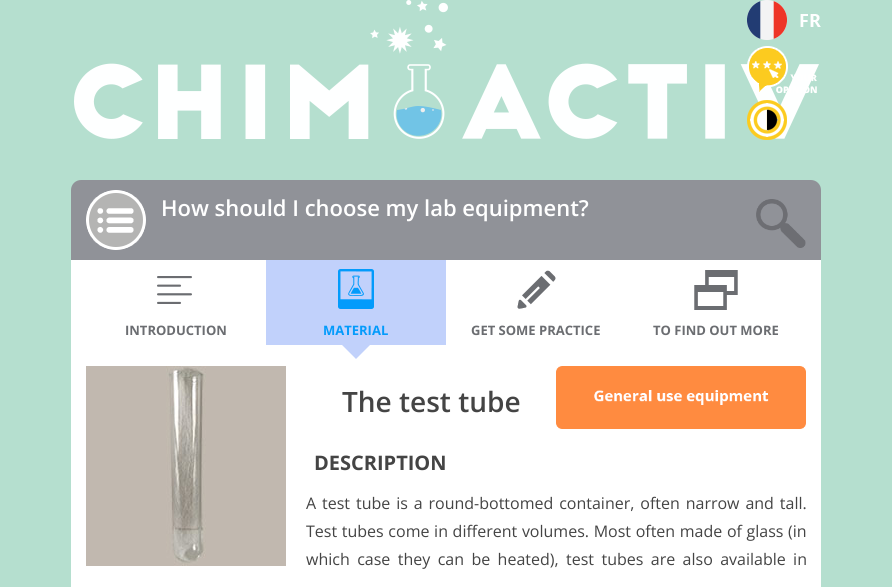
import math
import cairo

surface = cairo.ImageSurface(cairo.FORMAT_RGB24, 892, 587)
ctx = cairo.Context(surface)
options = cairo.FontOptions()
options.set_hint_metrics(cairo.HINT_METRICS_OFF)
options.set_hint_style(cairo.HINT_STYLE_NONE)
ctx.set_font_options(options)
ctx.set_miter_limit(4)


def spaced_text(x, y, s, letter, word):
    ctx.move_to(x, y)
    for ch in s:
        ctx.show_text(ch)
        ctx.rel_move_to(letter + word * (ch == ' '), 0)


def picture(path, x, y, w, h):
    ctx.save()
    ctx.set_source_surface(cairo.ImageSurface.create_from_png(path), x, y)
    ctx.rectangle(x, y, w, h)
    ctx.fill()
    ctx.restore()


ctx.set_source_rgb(0.71, 0.875, 0.812)
ctx.paint()
picture("img1.png", 74, 0, 745, 139)
ctx.set_source_rgb(0.443, 0.769, 0.902)
ctx.new_path()
ctx.move_to(418, 106)
ctx.curve_to(426, 106, 433, 108, 441, 110)
ctx.curve_to(445, 133, 414, 146, 400, 126)
ctx.curve_to(397, 121, 396, 116, 397, 110)
ctx.line_to(403, 109)
ctx.curve_to(408, 108, 413, 106, 418, 106)
ctx.close_path()
ctx.fill()
ctx.set_source_rgb(0.933, 0.933, 0.933)
ctx.new_path()
ctx.move_to(404.5, 108.5)
ctx.line_to(407, 108)
ctx.curve_to(408, 109.5, 405, 110.5, 404.5, 108.5)
ctx.close_path()
ctx.fill()
ctx.arc(422.8, 110.1, 2.2, 0, 2 * math.pi)
ctx.fill()
ctx.arc(433, 110, 0.8, 0, 2 * math.pi)
ctx.fill()
ctx.save()
ctx.new_path()
ctx.move_to(418, 106)
ctx.curve_to(415, 106, 412.5, 106.5, 409.5, 107)
ctx.curve_to(407, 107.5, 404.5, 109, 402, 109.5)
ctx.line_to(393.5, 111.5)
ctx.curve_to(391.5, 112, 389.5, 113, 387.5, 114)
ctx.line_to(380, 117.5)
ctx.curve_to(377.5, 118.5, 374.5, 119.5, 372, 120.5)
ctx.curve_to(369.5, 122, 367.5, 123.5, 365, 125)
ctx.curve_to(363, 127, 361, 129, 359.5, 131)
ctx.curve_to(357.5, 133, 356.5, 135.5, 354.5, 137.5)
ctx.line_to(351.5, 140.5)
ctx.line_to(349, 143.5)
ctx.curve_to(346.5, 147, 345, 151, 343, 154.5)
ctx.line_to(338.5, 162)
ctx.curve_to(337, 164.5, 335.5, 167, 335, 169.5)
ctx.curve_to(334, 172, 333.5, 175, 333, 177.5)
ctx.line_to(333, 186)
ctx.curve_to(333, 189, 332.5, 191.5, 332, 194.5)
ctx.curve_to(332, 197, 332.5, 199.5, 332.5, 202)
ctx.line_to(334, 209.5)
ctx.line_to(334.5, 217.5)
ctx.curve_to(335, 222, 336, 226.5, 338, 230.5)
ctx.curve_to(339.5, 233, 341, 235, 342.5, 237.5)
ctx.line_to(345, 240.5)
ctx.line_to(347, 244.5)
ctx.curve_to(348, 247, 350, 249, 352, 251.5)
ctx.line_to(356.5, 256)
ctx.curve_to(358.5, 258, 360.5, 260, 362, 262)
ctx.curve_to(363.5, 264.5, 365.5, 266.5, 367.5, 268)
ctx.curve_to(372, 271.5, 377, 274, 382.5, 275.5)
ctx.line_to(386, 276.5)
ctx.line_to(389.5, 278.5)
ctx.curve_to(392, 280, 395, 280.5, 398, 281.5)
ctx.line_to(408.5, 283)
ctx.line_to(412.5, 284)
ctx.curve_to(415.5, 285, 418, 285.5, 420.5, 285.5)
ctx.curve_to(423.5, 285.5, 426.5, 285.5, 429, 285)
ctx.curve_to(431.5, 284.5, 434, 284, 437, 283)
ctx.line_to(441, 282)
ctx.line_to(445, 281)
ctx.curve_to(450, 280, 454.5, 277.5, 459, 275.5)
ctx.line_to(467, 272)
ctx.curve_to(469.5, 271, 472, 270, 474, 268)
ctx.curve_to(476.5, 266.5, 478.5, 265, 480.5, 263)
ctx.curve_to(482.5, 261, 484, 259, 485.5, 256.5)
ctx.line_to(488, 253)
ctx.line_to(491, 250.5)
ctx.curve_to(492.5, 248, 494, 246, 495.5, 243.5)
ctx.curve_to(497.5, 240, 499.5, 236, 502, 232)
ctx.curve_to(503.5, 230, 505, 227.5, 506, 225)
ctx.curve_to(507, 222.5, 508, 219.5, 508.5, 217)
ctx.curve_to(509, 214, 509, 211.5, 509, 208.5)
ctx.line_to(509, 204.5)
ctx.line_to(509.5, 200.5)
ctx.curve_to(510, 197.5, 510, 194.5, 509.5, 191.5)
ctx.line_to(508.5, 185.5)
ctx.curve_to(508.5, 182.5, 508, 180, 508, 177)
ctx.curve_to(507.5, 174.5, 507.5, 172.5, 507, 170.5)
ctx.line_to(505, 164)
ctx.curve_to(504, 161.5, 503, 159, 501.5, 156.5)
ctx.curve_to(500, 154.5, 498, 152.5, 496.5, 150)
ctx.line_to(494.5, 146.5)
ctx.line_to(492, 142.5)
ctx.curve_to(489, 138.5, 485.5, 135.5, 482, 132)
ctx.curve_to(480.5, 129.5, 478.5, 127.5, 477, 125.5)
ctx.curve_to(475, 123.5, 472.5, 122, 470, 120.5)
ctx.curve_to(468, 119, 465, 117.5, 462.5, 116.5)
ctx.curve_to(460, 116, 457.5, 115.5, 455.5, 114.5)
ctx.line_to(451.5, 112.5)
ctx.line_to(447.5, 111)
ctx.line_to(432, 108)
ctx.line_to(423.5, 106)
ctx.line_to(418, 106)
ctx.curve_to(417, 106, 419, 106, 418, 106)
ctx.close_path()
ctx.clip()
ctx.arc(412.6, 104.5, 1.5, 0, 2 * math.pi)
ctx.set_line_width(0.3)
ctx.stroke()
ctx.restore()
picture("img2.png", 747, 0, 74, 40)
picture("img3.png", 747, 46, 70, 48)
picture("img4.png", 747, 100, 40, 40)
ctx.set_source_rgb(0.565, 0.573, 0.596)
ctx.new_path()
ctx.move_to(81, 180)
ctx.line_to(811, 180)
ctx.curve_to(816.5, 180, 821, 184.5, 821, 190)
ctx.line_to(821, 260)
ctx.line_to(71, 260)
ctx.line_to(71, 190)
ctx.curve_to(71, 184.5, 75.5, 180, 81, 180)
ctx.close_path()
ctx.fill()
picture("img5.png", 86, 190, 60, 60)
ctx.select_font_face("Open Sans SemiBold")
ctx.set_font_size(22)
ctx.set_source_rgb(1, 1, 1)
ctx.move_to(161, 216)
ctx.show_text("How should I choose my lab equipment?")
picture("img6.png", 756, 199, 50, 49)
ctx.rectangle(71, 260, 750, 327)
ctx.fill()
picture("img7.png", 157, 276, 35, 28)
ctx.select_font_face("Open Sans", cairo.FONT_SLANT_NORMAL, cairo.FONT_WEIGHT_BOLD)
ctx.set_font_size(13)
ctx.set_source_rgb(0.42, 0.427, 0.443)
ctx.move_to(125, 335)
ctx.show_text("INTRODUCTION")
ctx.set_source_rgb(0.757, 0.82, 0.984)
ctx.rectangle(266, 260, 180, 85)
ctx.fill()
picture("img8.png", 338, 269, 36, 40)
ctx.set_source_rgb(0.012, 0.608, 0.984)
ctx.move_to(323, 335)
ctx.show_text("MATERIAL")
ctx.set_source_rgb(0.757, 0.82, 0.984)
ctx.new_path()
ctx.move_to(342, 345)
ctx.line_to(370, 345)
ctx.line_to(356, 359)
ctx.close_path()
ctx.fill()
picture("img9.png", 517, 270, 39, 39)
ctx.set_source_rgb(0.42, 0.427, 0.443)
ctx.move_to(471, 335)
ctx.show_text("GET SOME PRACTICE")
picture("img10.png", 694, 270, 44, 40)
ctx.move_to(653, 335)
ctx.show_text("TO FIND OUT MORE")
picture("img11.png", 86, 366, 200, 200)
ctx.select_font_face("Open Sans SemiBold")
ctx.set_font_size(28)
ctx.set_source_rgb(0.267, 0.267, 0.267)
ctx.move_to(342, 412)
ctx.show_text("The test tube")
picture("img12.png", 556, 366, 250, 63)
ctx.select_font_face("Open Sans", cairo.FONT_SLANT_NORMAL, cairo.FONT_WEIGHT_BOLD)
ctx.set_font_size(20)
ctx.move_to(314, 470)
ctx.show_text("DESCRIPTION")
ctx.select_font_face("Open Sans")
ctx.set_font_size(16)
spaced_text(306, 509, "A test tube is a round-bottomed container, often narrow and tall.", 0, 1.75)
spaced_text(306, 537, "Test tubes come in different volumes. Most often made of glass (in", 0, 0.5)
spaced_text(306, 565, "which case they can be heated), test tubes are also available in", 0, 3.25)
surface.write_to_png("page.png")
